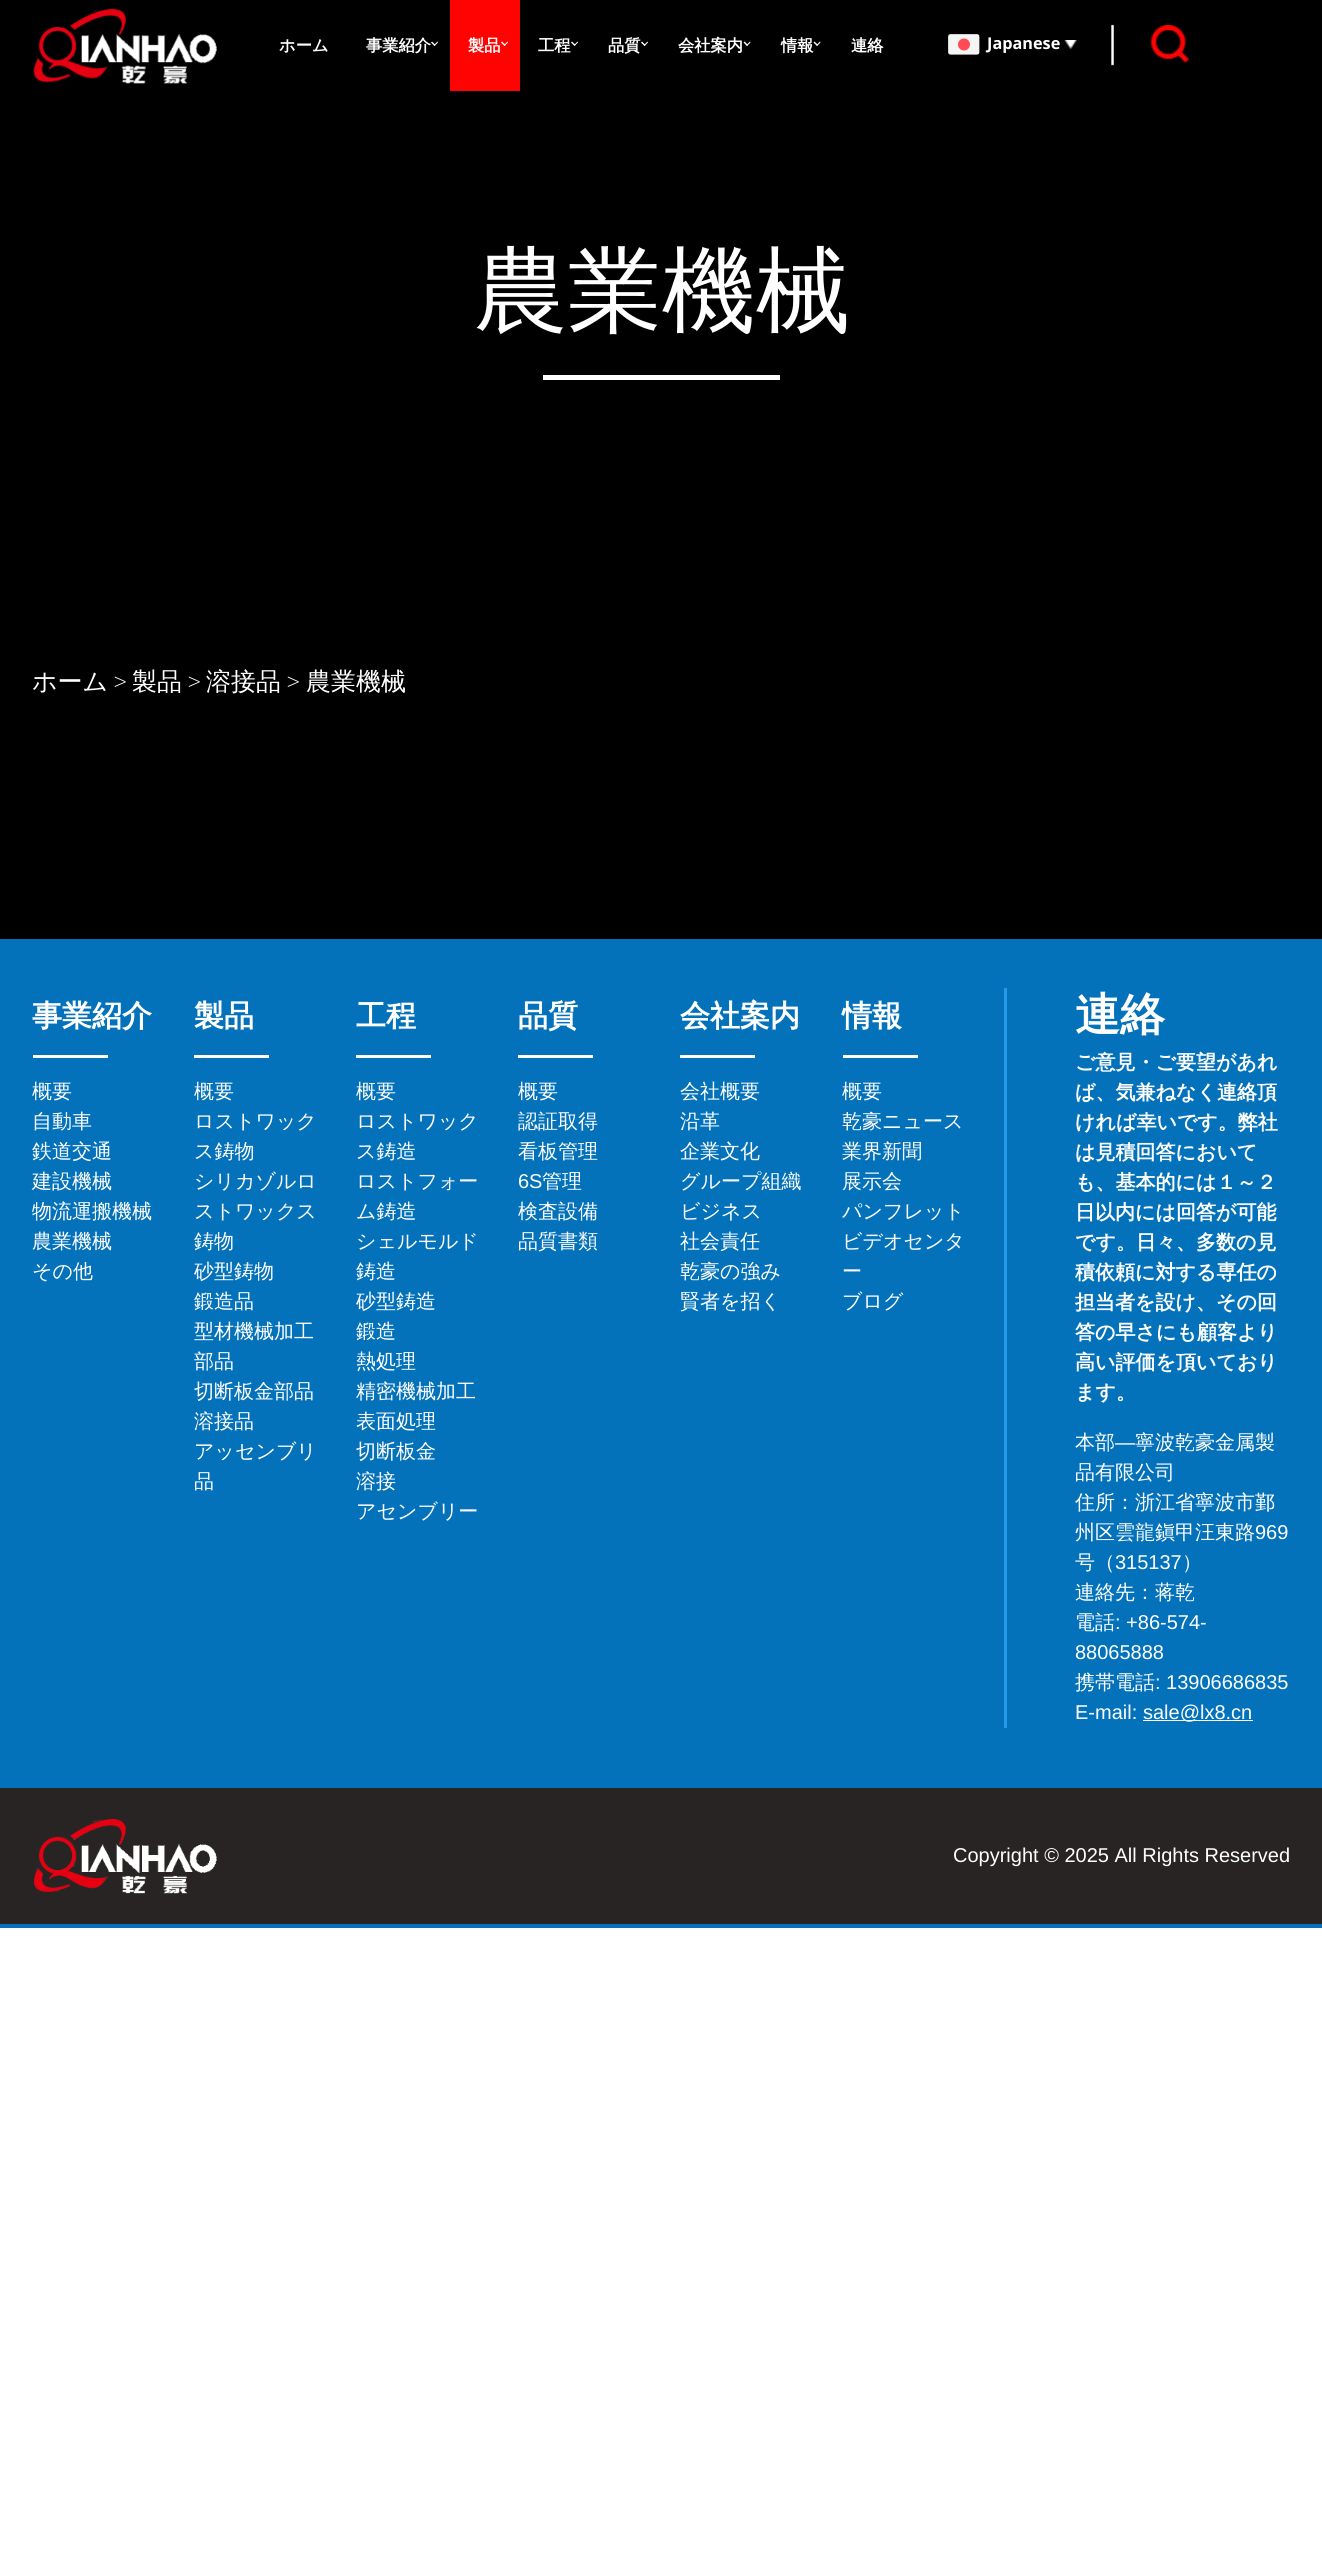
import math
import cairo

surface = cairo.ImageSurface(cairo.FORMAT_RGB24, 1322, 2554)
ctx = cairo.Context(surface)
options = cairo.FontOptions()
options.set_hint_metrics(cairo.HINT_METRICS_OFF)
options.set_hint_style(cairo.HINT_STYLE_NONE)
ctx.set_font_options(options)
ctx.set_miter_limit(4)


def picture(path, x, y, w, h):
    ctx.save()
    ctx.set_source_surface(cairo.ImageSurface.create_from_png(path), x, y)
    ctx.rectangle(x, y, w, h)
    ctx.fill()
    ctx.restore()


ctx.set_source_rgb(1, 1, 1)
ctx.paint()
ctx.set_source_rgb(0, 0, 0)
ctx.rectangle(0, 0, 1322, 939)
ctx.fill()
picture("img1.png", 33, 9, 184, 75)
ctx.select_font_face("WenQuanYi Zen Hei", cairo.FONT_SLANT_NORMAL, cairo.FONT_WEIGHT_BOLD)
ctx.set_font_size(16.25)
ctx.set_source_rgb(1, 1, 1)
ctx.move_to(279, 51)
ctx.show_text("ホーム")
ctx.move_to(366, 51)
ctx.show_text("事業紹介")
ctx.new_path()
ctx.move_to(437.5, 41.5)
ctx.line_to(438, 42.5)
ctx.line_to(434.5, 46)
ctx.line_to(434, 45)
ctx.close_path()
ctx.fill()
ctx.new_path()
ctx.move_to(432, 41.5)
ctx.line_to(435.5, 45)
ctx.line_to(434.5, 46)
ctx.line_to(431, 42.5)
ctx.close_path()
ctx.fill()
ctx.set_source_rgb(1, 0.012, 0.012)
ctx.rectangle(450, 0, 70, 91)
ctx.fill()
ctx.set_source_rgb(1, 1, 1)
ctx.move_to(468, 51)
ctx.show_text("製品")
ctx.new_path()
ctx.move_to(507.5, 41.5)
ctx.line_to(508, 42.5)
ctx.line_to(504.5, 46)
ctx.line_to(504, 45)
ctx.close_path()
ctx.fill()
ctx.new_path()
ctx.move_to(502, 41.5)
ctx.line_to(505.5, 45)
ctx.line_to(504.5, 46)
ctx.line_to(501, 42.5)
ctx.close_path()
ctx.fill()
ctx.move_to(538, 51)
ctx.show_text("工程")
ctx.new_path()
ctx.move_to(577.5, 41.5)
ctx.line_to(578, 42.5)
ctx.line_to(574.5, 46)
ctx.line_to(574, 45)
ctx.close_path()
ctx.fill()
ctx.new_path()
ctx.move_to(572, 41.5)
ctx.line_to(575.5, 45)
ctx.line_to(574.5, 46)
ctx.line_to(571, 42.5)
ctx.close_path()
ctx.fill()
ctx.move_to(608, 51)
ctx.show_text("品質")
ctx.new_path()
ctx.move_to(647.5, 41.5)
ctx.line_to(648, 42.5)
ctx.line_to(644.5, 46)
ctx.line_to(644, 45)
ctx.close_path()
ctx.fill()
ctx.new_path()
ctx.move_to(642, 41.5)
ctx.line_to(645.5, 45)
ctx.line_to(644.5, 46)
ctx.line_to(641, 42.5)
ctx.close_path()
ctx.fill()
ctx.move_to(678, 51)
ctx.show_text("会社案内")
ctx.new_path()
ctx.move_to(750, 41.5)
ctx.line_to(750.5, 42.5)
ctx.line_to(747, 46)
ctx.line_to(746.5, 45)
ctx.close_path()
ctx.fill()
ctx.new_path()
ctx.move_to(744.5, 41.5)
ctx.line_to(748, 45)
ctx.line_to(747, 46)
ctx.line_to(743.5, 42.5)
ctx.close_path()
ctx.fill()
ctx.move_to(781, 51)
ctx.show_text("情報")
ctx.new_path()
ctx.move_to(820, 41.5)
ctx.line_to(820.5, 42.5)
ctx.line_to(817, 46)
ctx.line_to(816.5, 45)
ctx.close_path()
ctx.fill()
ctx.new_path()
ctx.move_to(814.5, 41.5)
ctx.line_to(818, 45)
ctx.line_to(817, 46)
ctx.line_to(813.5, 42.5)
ctx.close_path()
ctx.fill()
ctx.move_to(851, 51)
ctx.show_text("連絡")
picture("img2.png", 1111, 24, 3, 42)
picture("img3.png", 948, 34, 32, 21)
ctx.select_font_face("Open Sans", cairo.FONT_SLANT_NORMAL, cairo.FONT_WEIGHT_BOLD)
ctx.move_to(987, 49)
ctx.show_text("Japanese")
picture("img4.png", 1064, 40, 13, 9)
picture("img5.png", 1150, 25, 39, 38)
ctx.select_font_face("WenQuanYi Zen Hei Medium")
ctx.set_font_size(94)
ctx.move_to(474, 323)
ctx.show_text("農業機械")
ctx.rectangle(543, 375, 237, 5)
ctx.fill()
ctx.set_font_size(25)
ctx.move_to(32, 690)
ctx.show_text("ホーム")
ctx.select_font_face("Futura PT Light")
ctx.move_to(114, 690)
ctx.show_text(">")
ctx.select_font_face("WenQuanYi Zen Hei Medium")
ctx.move_to(132, 690)
ctx.show_text("製品")
ctx.select_font_face("Futura PT Light")
ctx.move_to(188, 690)
ctx.show_text(">")
ctx.select_font_face("WenQuanYi Zen Hei Medium")
ctx.move_to(206, 690)
ctx.show_text("溶接品")
ctx.select_font_face("Futura PT Light")
ctx.move_to(287, 690)
ctx.show_text(">")
ctx.select_font_face("WenQuanYi Zen Hei Medium")
ctx.move_to(306, 690)
ctx.show_text("農業機械")
ctx.set_source_rgb(0.016, 0.447, 0.729)
ctx.rectangle(0, 939, 1322, 849)
ctx.fill()
ctx.select_font_face("WenQuanYi Zen Hei", cairo.FONT_SLANT_NORMAL, cairo.FONT_WEIGHT_BOLD)
ctx.set_font_size(30)
ctx.set_source_rgb(1, 1, 1)
ctx.move_to(32, 1026)
ctx.show_text("事業紹介")
ctx.rectangle(33, 1055, 75, 3)
ctx.fill()
ctx.select_font_face("WenQuanYi Zen Hei Medium")
ctx.set_font_size(20)
ctx.move_to(32, 1098)
ctx.show_text("概要")
ctx.move_to(32, 1128)
ctx.show_text("自動車")
ctx.move_to(32, 1158)
ctx.show_text("鉄道交通")
ctx.move_to(32, 1188)
ctx.show_text("建設機械")
ctx.move_to(32, 1218)
ctx.show_text("物流運搬機械")
ctx.move_to(32, 1248)
ctx.show_text("農業機械")
ctx.move_to(32, 1278)
ctx.show_text("その他")
ctx.select_font_face("WenQuanYi Zen Hei", cairo.FONT_SLANT_NORMAL, cairo.FONT_WEIGHT_BOLD)
ctx.set_font_size(30)
ctx.move_to(194, 1026)
ctx.show_text("製品")
ctx.rectangle(194, 1055, 75, 3)
ctx.fill()
ctx.select_font_face("WenQuanYi Zen Hei Medium")
ctx.set_font_size(20)
ctx.move_to(194, 1098)
ctx.show_text("概要")
ctx.move_to(194, 1128)
ctx.show_text("ロストワック")
ctx.move_to(194, 1158)
ctx.show_text("ス鋳物")
ctx.move_to(194, 1188)
ctx.show_text("シリカゾルロ")
ctx.move_to(194, 1218)
ctx.show_text("ストワックス")
ctx.move_to(194, 1248)
ctx.show_text("鋳物")
ctx.move_to(194, 1278)
ctx.show_text("砂型鋳物")
ctx.move_to(194, 1308)
ctx.show_text("鍛造品")
ctx.move_to(194, 1338)
ctx.show_text("型材機械加工")
ctx.move_to(194, 1368)
ctx.show_text("部品")
ctx.move_to(194, 1398)
ctx.show_text("切断板金部品")
ctx.move_to(194, 1428)
ctx.show_text("溶接品")
ctx.move_to(194, 1458)
ctx.show_text("アッセンブリ")
ctx.move_to(194, 1488)
ctx.show_text("品")
ctx.select_font_face("WenQuanYi Zen Hei", cairo.FONT_SLANT_NORMAL, cairo.FONT_WEIGHT_BOLD)
ctx.set_font_size(30)
ctx.move_to(356, 1026)
ctx.show_text("工程")
ctx.rectangle(356, 1055, 75, 3)
ctx.fill()
ctx.select_font_face("WenQuanYi Zen Hei Medium")
ctx.set_font_size(20)
ctx.move_to(356, 1098)
ctx.show_text("概要")
ctx.move_to(356, 1128)
ctx.show_text("ロストワック")
ctx.move_to(356, 1158)
ctx.show_text("ス鋳造")
ctx.move_to(356, 1188)
ctx.show_text("ロストフォー")
ctx.move_to(356, 1218)
ctx.show_text("ム鋳造")
ctx.move_to(356, 1248)
ctx.show_text("シェルモルド")
ctx.move_to(356, 1278)
ctx.show_text("鋳造")
ctx.move_to(356, 1308)
ctx.show_text("砂型鋳造")
ctx.move_to(356, 1338)
ctx.show_text("鍛造")
ctx.move_to(356, 1368)
ctx.show_text("熱処理")
ctx.move_to(356, 1398)
ctx.show_text("精密機械加工")
ctx.move_to(356, 1428)
ctx.show_text("表面処理")
ctx.move_to(356, 1458)
ctx.show_text("切断板金")
ctx.move_to(356, 1488)
ctx.show_text("溶接")
ctx.move_to(356, 1518)
ctx.show_text("アセンブリー")
ctx.select_font_face("WenQuanYi Zen Hei", cairo.FONT_SLANT_NORMAL, cairo.FONT_WEIGHT_BOLD)
ctx.set_font_size(30)
ctx.move_to(518, 1026)
ctx.show_text("品質")
ctx.rectangle(518, 1055, 75, 3)
ctx.fill()
ctx.select_font_face("WenQuanYi Zen Hei Medium")
ctx.set_font_size(20)
ctx.move_to(518, 1098)
ctx.show_text("概要")
ctx.move_to(518, 1128)
ctx.show_text("認証取得")
ctx.move_to(518, 1158)
ctx.show_text("看板管理")
ctx.select_font_face("Liberation Sans")
ctx.move_to(518, 1188)
ctx.show_text("6S")
ctx.select_font_face("WenQuanYi Zen Hei Medium")
ctx.move_to(542, 1188)
ctx.show_text("管理")
ctx.move_to(518, 1218)
ctx.show_text("検査設備")
ctx.move_to(518, 1248)
ctx.show_text("品質書類")
ctx.select_font_face("WenQuanYi Zen Hei", cairo.FONT_SLANT_NORMAL, cairo.FONT_WEIGHT_BOLD)
ctx.set_font_size(30)
ctx.move_to(680, 1026)
ctx.show_text("会社案内")
ctx.rectangle(680, 1055, 75, 3)
ctx.fill()
ctx.select_font_face("WenQuanYi Zen Hei Medium")
ctx.set_font_size(20)
ctx.move_to(680, 1098)
ctx.show_text("会社概要")
ctx.move_to(680, 1128)
ctx.show_text("沿革")
ctx.move_to(680, 1158)
ctx.show_text("企業文化")
ctx.move_to(680, 1188)
ctx.show_text("グループ組織")
ctx.move_to(680, 1218)
ctx.show_text("ビジネス")
ctx.move_to(680, 1248)
ctx.show_text("社会責任")
ctx.move_to(680, 1278)
ctx.show_text("乾豪の強み")
ctx.move_to(680, 1308)
ctx.show_text("賢者を招く")
ctx.select_font_face("WenQuanYi Zen Hei", cairo.FONT_SLANT_NORMAL, cairo.FONT_WEIGHT_BOLD)
ctx.set_font_size(30)
ctx.move_to(842, 1026)
ctx.show_text("情報")
ctx.rectangle(843, 1055, 75, 3)
ctx.fill()
ctx.select_font_face("WenQuanYi Zen Hei Medium")
ctx.set_font_size(20)
ctx.move_to(842, 1098)
ctx.show_text("概要")
ctx.move_to(842, 1128)
ctx.show_text("乾豪ニュース")
ctx.move_to(842, 1158)
ctx.show_text("業界新聞")
ctx.move_to(842, 1188)
ctx.show_text("展示会")
ctx.move_to(842, 1218)
ctx.show_text("パンフレット")
ctx.move_to(842, 1248)
ctx.show_text("ビデオセンタ")
ctx.move_to(842, 1278)
ctx.show_text("ー")
ctx.move_to(842, 1308)
ctx.show_text("ブログ")
ctx.set_source_rgb(0.145, 0.608, 0.91)
ctx.rectangle(1004, 988, 3, 740)
ctx.fill()
ctx.select_font_face("WenQuanYi Zen Hei", cairo.FONT_SLANT_NORMAL, cairo.FONT_WEIGHT_BOLD)
ctx.set_font_size(45)
ctx.set_source_rgb(1, 1, 1)
ctx.move_to(1075, 1030)
ctx.show_text("連絡")
ctx.set_font_size(20)
ctx.move_to(1075, 1069)
ctx.show_text("ご意見・ご要望があれ")
ctx.move_to(1075, 1099)
ctx.show_text("ば、気兼ねなく連絡頂")
ctx.move_to(1075, 1129)
ctx.show_text("ければ幸いです。弊社")
ctx.move_to(1075, 1159)
ctx.show_text("は見積回答において")
ctx.move_to(1075, 1189)
ctx.show_text("も、基本的には１～２")
ctx.move_to(1075, 1219)
ctx.show_text("日以内には回答が可能")
ctx.move_to(1075, 1249)
ctx.show_text("です。日々、多数の見")
ctx.move_to(1075, 1279)
ctx.show_text("積依頼に対する専任の")
ctx.move_to(1075, 1309)
ctx.show_text("担当者を設け、その回")
ctx.move_to(1075, 1339)
ctx.show_text("答の早さにも顧客より")
ctx.move_to(1075, 1369)
ctx.show_text("高い評価を頂いており")
ctx.move_to(1075, 1399)
ctx.show_text("ます。")
ctx.select_font_face("WenQuanYi Zen Hei Medium")
ctx.move_to(1075, 1449)
ctx.show_text("本部")
ctx.select_font_face("Liberation Sans")
ctx.move_to(1115, 1449)
ctx.show_text("—")
ctx.select_font_face("WenQuanYi Zen Hei Medium")
ctx.move_to(1135, 1449)
ctx.show_text("寧波乾豪金属製")
ctx.move_to(1075, 1479)
ctx.show_text("品有限公司")
ctx.move_to(1075, 1509)
ctx.show_text("住所：浙江省寧波市鄞")
ctx.move_to(1075, 1539)
ctx.show_text("州区雲龍鎭甲汪東路")
ctx.select_font_face("Liberation Sans")
ctx.move_to(1255, 1539)
ctx.show_text("969")
ctx.select_font_face("WenQuanYi Zen Hei Medium")
ctx.move_to(1075, 1569)
ctx.show_text("号（")
ctx.select_font_face("Liberation Sans")
ctx.move_to(1115, 1569)
ctx.show_text("315137")
ctx.select_font_face("WenQuanYi Zen Hei Medium")
ctx.move_to(1182, 1569)
ctx.show_text("）")
ctx.move_to(1075, 1599)
ctx.show_text("連絡先：蒋乾")
ctx.move_to(1075, 1629)
ctx.show_text("電話")
ctx.select_font_face("Liberation Sans")
ctx.move_to(1115, 1629)
ctx.show_text(": +86-574-")
ctx.move_to(1075, 1659)
ctx.show_text("88065888")
ctx.select_font_face("WenQuanYi Zen Hei Medium")
ctx.move_to(1075, 1689)
ctx.show_text("携帯電話")
ctx.select_font_face("Liberation Sans")
ctx.move_to(1155, 1689)
ctx.show_text(": 13906686835")
ctx.move_to(1075, 1719)
ctx.show_text("E-mail:")
ctx.rectangle(1143, 1720, 110, 1)
ctx.fill()
ctx.move_to(1143, 1719)
ctx.show_text("sale@lx8.cn")
ctx.set_source_rgb(0.153, 0.141, 0.137)
ctx.rectangle(0, 1788, 1322, 136)
ctx.fill()
ctx.set_source_rgb(0.016, 0.447, 0.729)
ctx.rectangle(0, 1924, 1322, 4)
ctx.fill()
picture("img6.png", 34, 1819, 183, 75)
ctx.set_source_rgb(1, 1, 1)
ctx.move_to(953, 1862)
ctx.show_text("Copyright © 2025 All Rights Reserved")
surface.write_to_png("page.png")
